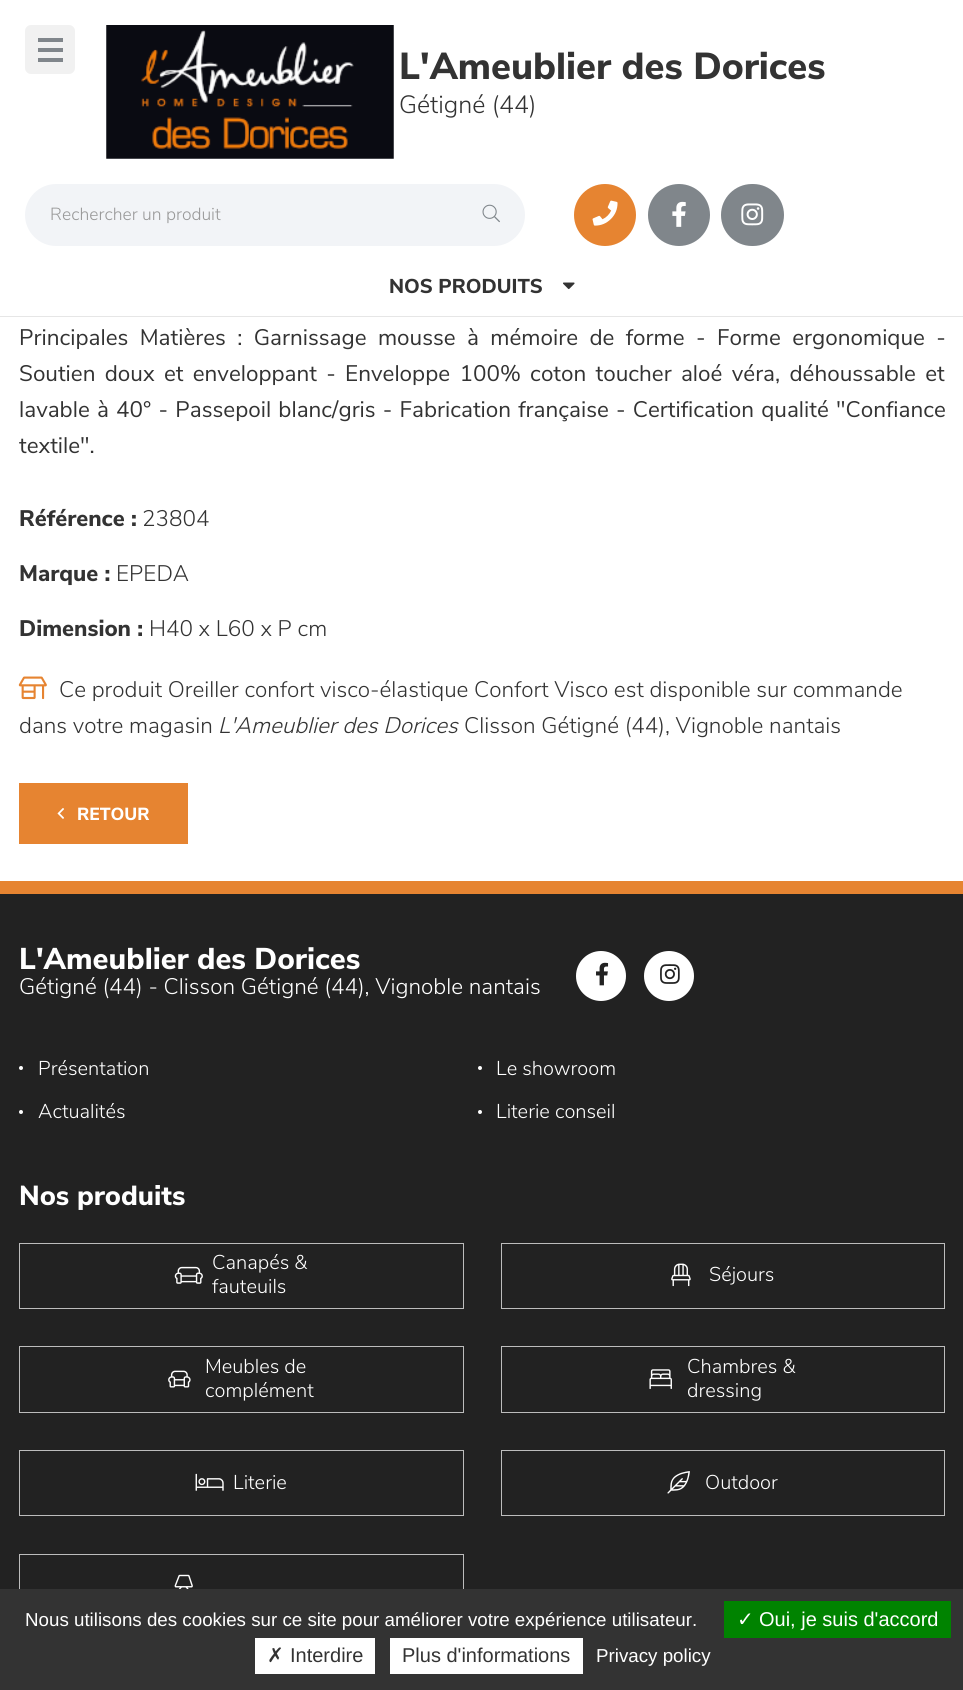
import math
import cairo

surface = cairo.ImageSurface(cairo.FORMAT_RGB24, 963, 1690)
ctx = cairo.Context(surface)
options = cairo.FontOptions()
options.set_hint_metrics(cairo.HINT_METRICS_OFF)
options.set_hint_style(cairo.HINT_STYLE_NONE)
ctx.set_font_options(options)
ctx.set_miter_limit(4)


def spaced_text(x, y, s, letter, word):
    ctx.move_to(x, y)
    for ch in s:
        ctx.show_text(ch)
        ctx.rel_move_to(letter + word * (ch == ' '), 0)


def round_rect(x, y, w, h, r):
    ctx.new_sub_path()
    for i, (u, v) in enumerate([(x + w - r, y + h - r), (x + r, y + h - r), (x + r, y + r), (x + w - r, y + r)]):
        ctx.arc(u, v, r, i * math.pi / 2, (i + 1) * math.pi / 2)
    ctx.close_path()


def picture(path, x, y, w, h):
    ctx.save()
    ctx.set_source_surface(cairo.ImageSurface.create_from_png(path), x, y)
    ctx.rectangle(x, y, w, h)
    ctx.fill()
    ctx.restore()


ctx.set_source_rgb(1, 1, 1)
ctx.paint()
ctx.set_source_rgb(0.902, 0.902, 0.902)
ctx.rectangle(0, 316, 963, 1)
ctx.fill()
ctx.set_source_rgb(0.945, 0.945, 0.945)
round_rect(25, 25, 50, 49, 6)
ctx.fill()
ctx.set_source_rgb(0.502, 0.525, 0.545)
ctx.rectangle(38, 38, 25, 4)
ctx.fill()
ctx.rectangle(38, 48, 25, 4)
ctx.fill()
ctx.rectangle(38, 58, 25, 4)
ctx.fill()
picture("img1.png", 106, 25, 288, 134)
ctx.select_font_face("Nunito Sans ExtraBold")
ctx.set_font_size(37.5)
ctx.set_source_rgb(0.2, 0.2, 0.2)
ctx.move_to(399, 79)
ctx.show_text("L'Ameublier des Dorices")
ctx.select_font_face("Nunito Sans Light")
ctx.set_font_size(25)
ctx.move_to(399, 113)
ctx.show_text("Gétigné (44)")
ctx.set_source_rgb(0.949, 0.957, 0.965)
ctx.new_path()
ctx.move_to(56, 184)
ctx.line_to(471, 184)
ctx.line_to(471, 246)
ctx.line_to(56, 246)
ctx.curve_to(39, 246, 25, 232, 25, 215)
ctx.curve_to(25, 198, 39, 184, 56, 184)
ctx.close_path()
ctx.fill()
ctx.set_font_size(17.5)
ctx.set_source_rgb(0.6, 0.6, 0.6)
ctx.move_to(50, 220)
ctx.show_text("Rechercher un produit")
ctx.set_source_rgb(0.949, 0.957, 0.965)
ctx.new_path()
ctx.move_to(470, 184)
ctx.line_to(494, 184)
ctx.curve_to(511, 184, 525, 198, 525, 215)
ctx.curve_to(525, 232, 511, 246, 494, 246)
ctx.line_to(470, 246)
ctx.close_path()
ctx.fill()
picture("img2.png", 482, 204, 18, 19)
ctx.set_source_rgb(0.902, 0.518, 0.192)
ctx.arc(605, 215, 31, 0, 2 * math.pi)
ctx.fill()
picture("img3.png", 592, 200, 26, 26)
ctx.set_source_rgb(0.502, 0.525, 0.545)
ctx.arc(679, 215, 31, 0, 2 * math.pi)
ctx.fill()
picture("img4.png", 672, 201, 14, 26)
round_rect(721, 184, 63, 62, 31)
ctx.fill()
picture("img5.png", 741, 203, 23, 23)
ctx.select_font_face("Nunito Sans ExtraBold")
ctx.set_font_size(20)
ctx.set_source_rgb(0.2, 0.2, 0.2)
ctx.move_to(389, 293)
ctx.show_text("NOS PRODUITS")
picture("img6.png", 563, 282, 12, 8)
ctx.select_font_face("Nunito Sans")
ctx.set_font_size(22.5)
spaced_text(19, 345, "Principales Matières : Garnissage mousse à mémoire de forme - Forme ergonomique -", 0, 5.6)
spaced_text(19, 381, "Soutien doux et enveloppant - Enveloppe 100% coton toucher aloé véra, déhoussable et", 0, 3.5)
spaced_text(19, 417, "lavable à 40° - Passepoil blanc/gris - Fabrication française - Certification qualité \"Confiance", 0, 1.4)
ctx.move_to(19, 453)
ctx.show_text("textile\".")
ctx.select_font_face("Nunito Sans ExtraBold")
ctx.move_to(19, 526)
ctx.show_text("Référence :")
ctx.select_font_face("Nunito Sans Light")
ctx.move_to(142, 526)
ctx.show_text("23804")
ctx.select_font_face("Nunito Sans ExtraBold")
ctx.move_to(19, 581)
ctx.show_text("Marque :")
ctx.select_font_face("Nunito Sans Light")
ctx.move_to(116, 581)
ctx.show_text("EPEDA")
ctx.select_font_face("Nunito Sans ExtraBold")
ctx.move_to(19, 636)
ctx.show_text("Dimension :")
ctx.select_font_face("Nunito Sans Light")
ctx.move_to(149, 636)
ctx.show_text("H40 x L60 x P cm")
picture("img7.png", 18, 676, 29, 24)
ctx.move_to(59, 697)
ctx.show_text("Ce produit Oreiller confort visco-élastique Confort Visco est disponible sur commande")
ctx.move_to(19, 733)
ctx.show_text("dans votre magasin")
ctx.select_font_face("Nunito Sans Light", cairo.FONT_SLANT_ITALIC)
ctx.move_to(218, 733)
ctx.show_text("L'Ameublier des Dorices")
ctx.select_font_face("Nunito Sans Light")
ctx.move_to(464, 733)
ctx.show_text("Clisson Gétigné (44), Vignoble nantais")
ctx.set_source_rgb(0.902, 0.518, 0.192)
ctx.rectangle(19, 783, 169, 61)
ctx.fill()
picture("img8.png", 57, 808, 7, 11)
ctx.select_font_face("Nunito Sans ExtraBold")
ctx.set_font_size(17.5)
ctx.set_source_rgb(1, 1, 1)
ctx.move_to(77, 820)
ctx.show_text("RETOUR")
ctx.set_source_rgb(0.133, 0.133, 0.133)
ctx.rectangle(0, 894, 963, 695)
ctx.fill()
ctx.set_source_rgb(0.902, 0.518, 0.192)
ctx.rectangle(0, 881, 963, 13)
ctx.fill()
ctx.set_font_size(30)
ctx.set_source_rgb(1, 1, 1)
ctx.move_to(19, 969)
ctx.show_text("L'Ameublier des Dorices")
ctx.select_font_face("Nunito Sans Light")
ctx.set_font_size(22.5)
ctx.move_to(19, 994)
ctx.show_text("Gétigné (44) - Clisson Gétigné (44), Vignoble nantais")
ctx.new_path()
ctx.arc(601, 976, 25, 0, 2 * math.pi)
ctx.fill()
picture("img9.png", 596, 962, 13, 24)
ctx.arc(669, 976, 25, 0, 2 * math.pi)
ctx.fill()
picture("img10.png", 660, 964, 20, 20)
ctx.arc(21, 1068, 2, 0, 2 * math.pi)
ctx.fill()
ctx.set_font_size(20)
ctx.move_to(38, 1075)
ctx.show_text("Présentation")
ctx.new_path()
ctx.arc(480, 1068, 2, 0, 2 * math.pi)
ctx.fill()
ctx.move_to(496, 1075)
ctx.show_text("Le showroom")
ctx.new_path()
ctx.arc(21, 1112, 2, 0, 2 * math.pi)
ctx.fill()
ctx.move_to(38, 1118)
ctx.show_text("Actualités")
ctx.new_path()
ctx.arc(480, 1112, 2, 0, 2 * math.pi)
ctx.fill()
ctx.move_to(496, 1118)
ctx.show_text("Literie conseil")
ctx.select_font_face("Nunito Sans ExtraBold")
ctx.set_font_size(27.5)
ctx.move_to(19, 1205)
ctx.show_text("Nos produits")
ctx.rectangle(19.5, 1243.5, 444, 65)
ctx.set_source_rgb(0.741, 0.741, 0.741)
ctx.set_line_width(1)
ctx.stroke()
ctx.select_font_face("Nunito Sans Light")
ctx.set_font_size(20)
ctx.set_source_rgb(1, 1, 1)
ctx.move_to(212, 1269)
ctx.show_text("Canapés &")
picture("img11.png", 174, 1266, 29, 18)
ctx.move_to(212, 1293)
ctx.show_text("fauteuils")
ctx.rectangle(501.5, 1243.5, 443, 65)
ctx.set_source_rgb(0.741, 0.741, 0.741)
ctx.stroke()
picture("img12.png", 671, 1263, 20, 24)
ctx.set_source_rgb(1, 1, 1)
ctx.move_to(709, 1281)
ctx.show_text("Séjours")
ctx.rectangle(19.5, 1346.5, 444, 66)
ctx.set_source_rgb(0.741, 0.741, 0.741)
ctx.stroke()
ctx.set_source_rgb(1, 1, 1)
ctx.move_to(205, 1373)
ctx.show_text("Meubles de")
picture("img13.png", 168, 1370, 23, 18)
ctx.move_to(205, 1397)
ctx.show_text("complément")
ctx.rectangle(501.5, 1346.5, 443, 66)
ctx.set_source_rgb(0.741, 0.741, 0.741)
ctx.stroke()
ctx.set_source_rgb(1, 1, 1)
ctx.move_to(687, 1373)
ctx.show_text("Chambres &")
picture("img14.png", 649, 1369, 23, 20)
ctx.move_to(687, 1397)
ctx.show_text("dressing")
ctx.rectangle(19.5, 1450.5, 444, 65)
ctx.set_source_rgb(0.741, 0.741, 0.741)
ctx.stroke()
picture("img15.png", 195, 1473, 29, 18)
ctx.set_source_rgb(1, 1, 1)
ctx.move_to(233, 1489)
ctx.show_text("Literie")
ctx.rectangle(501.5, 1450.5, 443, 65)
ctx.set_source_rgb(0.741, 0.741, 0.741)
ctx.stroke()
picture("img16.png", 667, 1471, 23, 23)
ctx.set_source_rgb(1, 1, 1)
ctx.move_to(705, 1489)
ctx.show_text("Outdoor")
ctx.rectangle(19.5, 1554.5, 444, 65)
ctx.set_source_rgb(0.741, 0.741, 0.741)
ctx.stroke()
picture("img17.png", 174, 1574, 19, 15)
ctx.set_source_rgb(0.2, 0.2, 0.2)
ctx.rectangle(0, 1589, 963, 101)
ctx.fill()
ctx.select_font_face("Liberation Sans")
ctx.set_font_size(18.75)
ctx.set_source_rgb(1, 1, 1)
ctx.move_to(25, 1626)
ctx.show_text("Nous utilisons des cookies sur ce site pour améliorer votre expérience utilisateur.")
ctx.set_source_rgb(0, 0.514, 0)
ctx.rectangle(724, 1601, 227, 37)
ctx.fill()
ctx.select_font_face("DejaVu Sans")
ctx.set_font_size(20)
ctx.set_source_rgb(1, 1, 1)
ctx.move_to(737, 1626)
ctx.show_text("✓")
ctx.select_font_face("Liberation Sans")
ctx.move_to(759, 1626)
ctx.show_text("Oui, je suis d'accord")
ctx.rectangle(255, 1638, 120, 36)
ctx.fill()
ctx.select_font_face("DejaVu Sans")
ctx.set_source_rgb(0.2, 0.2, 0.2)
ctx.move_to(267, 1662)
ctx.show_text("✗")
ctx.select_font_face("Liberation Sans")
ctx.move_to(290, 1662)
ctx.show_text("Interdire")
ctx.set_source_rgb(1, 1, 1)
ctx.rectangle(390, 1638, 193, 36)
ctx.fill()
ctx.set_source_rgb(0.2, 0.2, 0.2)
ctx.move_to(402, 1662)
ctx.show_text("Plus d'informations")
ctx.set_font_size(18.75)
ctx.set_source_rgb(1, 1, 1)
ctx.move_to(596, 1662)
ctx.show_text("Privacy policy")
surface.write_to_png("page.png")
